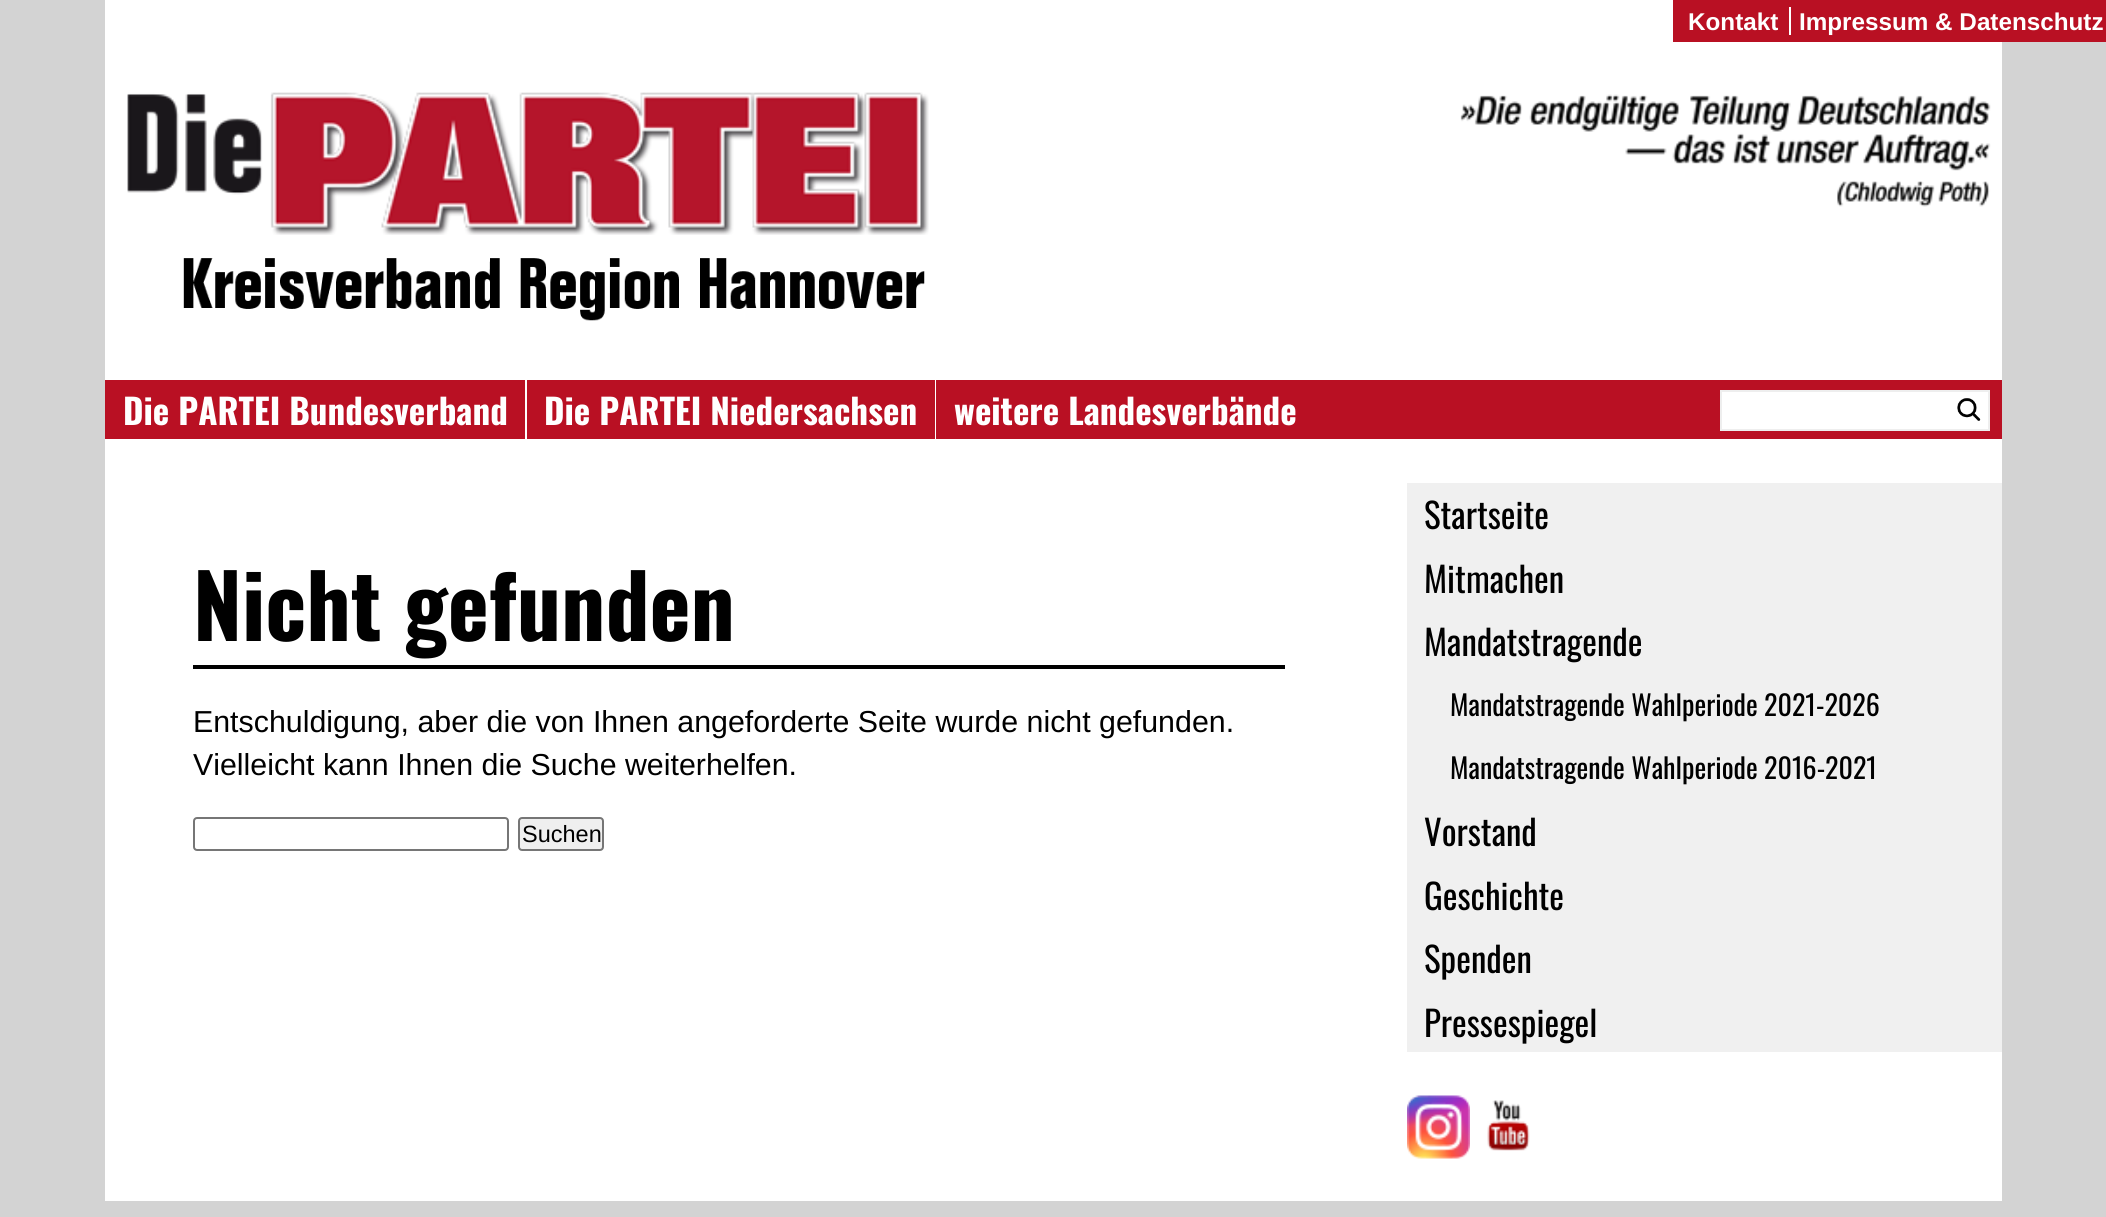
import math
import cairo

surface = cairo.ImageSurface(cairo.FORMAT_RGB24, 2106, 1217)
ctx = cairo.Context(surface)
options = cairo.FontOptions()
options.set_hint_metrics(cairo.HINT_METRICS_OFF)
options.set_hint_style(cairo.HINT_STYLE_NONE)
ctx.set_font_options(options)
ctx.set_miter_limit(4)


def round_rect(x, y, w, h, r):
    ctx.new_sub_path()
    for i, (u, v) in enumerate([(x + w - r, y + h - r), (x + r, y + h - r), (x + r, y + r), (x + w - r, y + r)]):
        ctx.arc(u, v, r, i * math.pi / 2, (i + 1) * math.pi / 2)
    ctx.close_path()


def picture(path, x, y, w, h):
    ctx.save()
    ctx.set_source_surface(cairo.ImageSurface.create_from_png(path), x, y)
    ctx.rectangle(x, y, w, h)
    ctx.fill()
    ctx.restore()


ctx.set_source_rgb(0.827, 0.827, 0.827)
ctx.paint()
ctx.set_source_rgb(1, 1, 1)
ctx.rectangle(105, 0, 1897, 1201)
ctx.fill()
ctx.set_source_rgb(0.725, 0.063, 0.137)
ctx.rectangle(1673, 0, 433, 42)
ctx.fill()
ctx.select_font_face("Liberation Sans", cairo.FONT_SLANT_NORMAL, cairo.FONT_WEIGHT_BOLD)
ctx.set_font_size(24.25)
ctx.set_source_rgb(1, 1, 1)
ctx.move_to(1688, 30)
ctx.show_text("Kontakt")
ctx.move_to(1799, 30)
ctx.show_text("Impressum & Datenschutz")
ctx.rectangle(1789, 7, 2, 28)
ctx.fill()
picture("img1.png", 127, 92, 802, 143)
picture("img2.png", 183, 258, 742, 63)
picture("img3.png", 1460, 94, 531, 113)
ctx.set_source_rgb(0.725, 0.063, 0.137)
ctx.rectangle(105, 380, 1897, 59)
ctx.fill()
ctx.set_source_rgb(1, 1, 1)
ctx.rectangle(525, 380, 2, 59)
ctx.fill()
ctx.select_font_face("Oswald", cairo.FONT_SLANT_NORMAL, cairo.FONT_WEIGHT_BOLD)
ctx.set_font_size(35)
ctx.move_to(123, 425)
ctx.show_text("Die PARTEI Bundesverband")
ctx.rectangle(935, 380, 1, 59)
ctx.fill()
ctx.move_to(544, 425)
ctx.show_text("Die PARTEI Niedersachsen")
ctx.move_to(954, 425)
ctx.show_text("weitere Landesverbände")
ctx.rectangle(1721, 391, 268, 39)
ctx.fill_preserve()
ctx.set_source_rgb(0.933, 0.933, 0.933)
ctx.stroke()
picture("img4.png", 1957, 398, 24, 23)
ctx.set_source_rgb(0, 0, 0)
ctx.rectangle(193, 665, 1092, 4)
ctx.fill()
ctx.set_font_size(87.5)
ctx.move_to(193, 641)
ctx.show_text("Nicht gefunden")
ctx.select_font_face("Liberation Sans")
ctx.set_font_size(30.35)
ctx.move_to(193, 732)
ctx.show_text("Entschuldigung, aber die von Ihnen angeforderte Seite wurde nicht gefunden.")
ctx.move_to(193, 775)
ctx.show_text("Vielleicht kann Ihnen die Suche weiterhelfen.")
round_rect(194, 818, 314, 32, 3)
ctx.set_source_rgb(0.463, 0.463, 0.463)
ctx.stroke()
ctx.set_source_rgb(0.937, 0.937, 0.937)
round_rect(519, 818, 84, 32, 3)
ctx.fill_preserve()
ctx.set_source_rgb(0.463, 0.463, 0.463)
ctx.stroke()
ctx.set_font_size(23.5)
ctx.set_source_rgb(0, 0, 0)
ctx.move_to(522, 842)
ctx.show_text("Suchen")
ctx.set_source_rgb(0.941, 0.941, 0.941)
ctx.rectangle(1407, 483, 595, 569)
ctx.fill()
ctx.select_font_face("Oswald")
ctx.set_font_size(35)
ctx.set_source_rgb(0, 0, 0)
ctx.move_to(1424, 529)
ctx.show_text("Startseite")
ctx.move_to(1424, 593)
ctx.show_text("Mitmachen")
ctx.move_to(1424, 656)
ctx.show_text("Mandatstragende")
ctx.set_font_size(28)
ctx.move_to(1450, 716)
ctx.show_text("Mandatstragende Wahlperiode 2021-2026")
ctx.move_to(1450, 779)
ctx.show_text("Mandatstragende Wahlperiode 2016-2021")
ctx.set_font_size(35)
ctx.move_to(1424, 846)
ctx.show_text("Vorstand")
ctx.move_to(1424, 910)
ctx.show_text("Geschichte")
ctx.move_to(1424, 973)
ctx.show_text("Spenden")
ctx.move_to(1424, 1037)
ctx.show_text("Pressespiegel")
picture("img5.png", 1407, 1095, 63, 64)
picture("img6.png", 1487, 1100, 43, 51)
surface.write_to_png("page.png")
